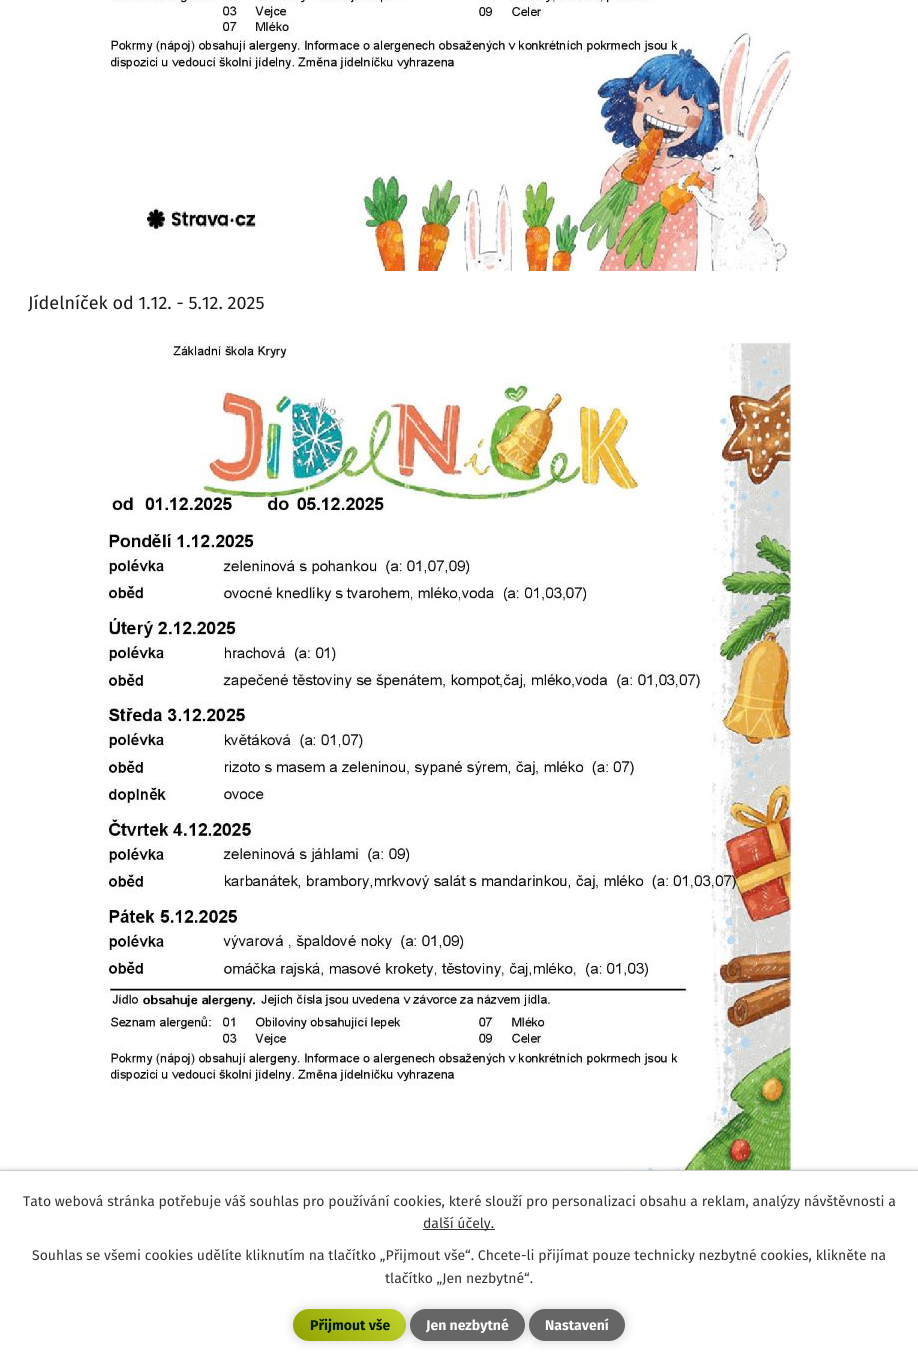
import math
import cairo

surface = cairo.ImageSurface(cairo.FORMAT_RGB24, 918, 1360)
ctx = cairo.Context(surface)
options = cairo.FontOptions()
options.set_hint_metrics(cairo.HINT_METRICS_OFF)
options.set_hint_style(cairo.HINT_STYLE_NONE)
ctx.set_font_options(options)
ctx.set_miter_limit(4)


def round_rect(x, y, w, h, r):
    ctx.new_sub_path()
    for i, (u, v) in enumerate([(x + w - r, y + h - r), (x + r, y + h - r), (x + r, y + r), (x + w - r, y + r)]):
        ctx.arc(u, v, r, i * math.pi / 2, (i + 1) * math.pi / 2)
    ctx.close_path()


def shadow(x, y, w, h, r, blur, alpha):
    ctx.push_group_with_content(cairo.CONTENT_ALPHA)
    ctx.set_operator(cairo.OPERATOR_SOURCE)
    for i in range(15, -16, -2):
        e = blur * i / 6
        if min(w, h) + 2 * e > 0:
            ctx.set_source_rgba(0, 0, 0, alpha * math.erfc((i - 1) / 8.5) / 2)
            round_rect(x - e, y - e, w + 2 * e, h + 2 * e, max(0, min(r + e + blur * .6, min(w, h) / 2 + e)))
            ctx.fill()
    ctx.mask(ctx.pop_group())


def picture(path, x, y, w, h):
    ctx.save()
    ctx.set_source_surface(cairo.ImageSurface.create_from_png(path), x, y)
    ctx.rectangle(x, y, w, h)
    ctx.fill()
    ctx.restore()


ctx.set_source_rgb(1, 1, 1)
ctx.paint()
picture("img1.png", 111, 0, 680, 271)
ctx.select_font_face("Fira Sans")
ctx.set_font_size(18)
ctx.set_source_rgb(0.102, 0.102, 0.102)
ctx.move_to(28, 309)
ctx.show_text("Jídelníček od 1.12. - 5.12. 2025")
picture("img2.png", 103, 342, 694, 828)
ctx.set_source_rgb(0, 0, 0)
shadow(0, 1170, 918, 190, 0, 2.5, 0.2)
ctx.set_source_rgb(1, 1, 1)
ctx.rectangle(0, 1171, 918, 189)
ctx.fill()
ctx.set_source_rgb(0.8, 0.8, 0.8)
ctx.rectangle(0, 1170, 918, 1)
ctx.fill()
ctx.set_font_size(14)
ctx.set_source_rgb(0.2, 0.2, 0.2)
ctx.move_to(23, 1206)
ctx.show_text("Tato webová stránka potřebuje váš souhlas pro používání cookies, které slouží pro personalizaci obsahu a reklam, analýzy návštěvnosti a")
ctx.rectangle(423, 1229, 72, 1)
ctx.fill()
ctx.move_to(423, 1228)
ctx.show_text("další účely.")
ctx.move_to(32, 1260)
ctx.show_text("Souhlas se všemi cookies udělíte kliknutím na tlačítko „Přijmout vše“. Chcete-li přijímat pouze technicky nezbytné cookies, klikněte na")
ctx.move_to(385, 1283)
ctx.show_text("tlačítko „Jen nezbytné“.")
ctx.set_source_rgb(0, 0, 0)
shadow(293, 1309, 113, 32, 16, 6, 0.16)
gradient = cairo.LinearGradient(313, 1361, 386, 1289)
gradient.add_color_stop_rgba(0, 0.561, 0.635, 0, 1)
gradient.add_color_stop_rgba(1, 0.757, 0.831, 0.176, 1)
ctx.set_source(gradient)
round_rect(293, 1309, 113, 32, 16)
ctx.fill()
ctx.select_font_face("Fira Sans", cairo.FONT_SLANT_NORMAL, cairo.FONT_WEIGHT_BOLD)
ctx.set_source_rgb(0, 0.114, 0.004)
ctx.move_to(310, 1330)
ctx.show_text("Přijmout vše")
ctx.set_source_rgb(0, 0, 0)
shadow(410, 1309, 115, 32, 16, 6, 0.16)
ctx.set_source_rgb(0.4, 0.4, 0.4)
round_rect(410, 1309, 115, 32, 16)
ctx.fill()
ctx.set_source_rgb(1, 1, 1)
ctx.move_to(426, 1330)
ctx.show_text("Jen nezbytné")
ctx.set_source_rgb(0, 0, 0)
shadow(529, 1309, 96, 32, 16, 6, 0.16)
ctx.set_source_rgb(0.4, 0.4, 0.4)
round_rect(529, 1309, 96, 32, 16)
ctx.fill()
ctx.set_source_rgb(1, 1, 1)
ctx.move_to(545, 1330)
ctx.show_text("Nastavení")
surface.write_to_png("page.png")
